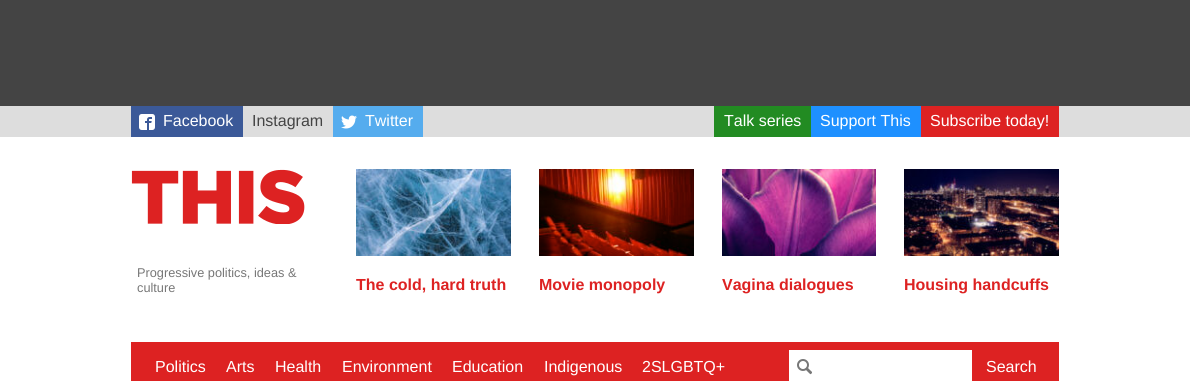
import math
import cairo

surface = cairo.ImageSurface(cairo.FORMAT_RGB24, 1190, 381)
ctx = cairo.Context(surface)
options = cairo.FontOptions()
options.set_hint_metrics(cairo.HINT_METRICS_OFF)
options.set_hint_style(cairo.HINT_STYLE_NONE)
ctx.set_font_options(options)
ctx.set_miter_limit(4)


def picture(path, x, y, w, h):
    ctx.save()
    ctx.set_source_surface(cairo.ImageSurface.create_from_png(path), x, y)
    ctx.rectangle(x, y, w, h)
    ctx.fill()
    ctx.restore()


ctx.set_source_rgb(1, 1, 1)
ctx.paint()
ctx.set_source_rgb(0.267, 0.267, 0.267)
ctx.rectangle(0, 0, 1190, 106)
ctx.fill()
ctx.set_source_rgb(0.867, 0.867, 0.867)
ctx.rectangle(0, 106, 1190, 31)
ctx.fill()
ctx.set_source_rgb(0.231, 0.349, 0.596)
ctx.rectangle(131, 106, 112, 31)
ctx.fill()
picture("img1.png", 139, 114, 16, 16)
ctx.select_font_face("Liberation Sans")
ctx.set_font_size(16)
ctx.set_source_rgb(1, 1, 1)
ctx.move_to(163, 126)
ctx.show_text("Facebook")
ctx.set_source_rgb(0.267, 0.267, 0.267)
ctx.move_to(252, 126)
ctx.show_text("Instagram")
ctx.set_source_rgb(0.333, 0.675, 0.933)
ctx.rectangle(333, 106, 90, 31)
ctx.fill()
picture("img2.png", 341, 115, 16, 14)
ctx.set_source_rgb(1, 1, 1)
ctx.move_to(365, 126)
ctx.show_text("Twitter")
ctx.set_source_rgb(0.133, 0.545, 0.133)
ctx.rectangle(714, 106, 97, 31)
ctx.fill()
ctx.set_source_rgb(1, 1, 1)
ctx.move_to(724, 126)
ctx.show_text("Talk series")
ctx.set_source_rgb(0.118, 0.565, 1)
ctx.rectangle(811, 106, 110, 31)
ctx.fill()
ctx.set_source_rgb(1, 1, 1)
ctx.move_to(820, 126)
ctx.show_text("Support This")
ctx.set_source_rgb(0.867, 0.133, 0.133)
ctx.rectangle(921, 106, 138, 31)
ctx.fill()
ctx.set_source_rgb(1, 1, 1)
ctx.move_to(930, 126)
ctx.show_text("Subscribe today!")
picture("img3.png", 131, 169, 174, 55)
ctx.set_font_size(12.75)
ctx.set_source_rgb(0.467, 0.467, 0.467)
ctx.move_to(137, 277)
ctx.show_text("Progressive politics, ideas &")
ctx.move_to(137, 292)
ctx.show_text("culture")
picture("img4.png", 356, 169, 155, 87)
ctx.select_font_face("Liberation Sans", cairo.FONT_SLANT_NORMAL, cairo.FONT_WEIGHT_BOLD)
ctx.set_font_size(16)
ctx.set_source_rgb(0.867, 0.133, 0.133)
ctx.move_to(356, 290)
ctx.show_text("The cold, hard truth")
picture("img5.png", 539, 169, 155, 87)
ctx.move_to(539, 290)
ctx.show_text("Movie monopoly")
picture("img6.png", 722, 169, 154, 87)
ctx.move_to(722, 290)
ctx.show_text("Vagina dialogues")
picture("img7.png", 904, 169, 155, 87)
ctx.move_to(904, 290)
ctx.show_text("Housing handcuffs")
ctx.rectangle(131, 342, 928, 39)
ctx.fill()
ctx.select_font_face("Liberation Sans")
ctx.set_source_rgb(1, 1, 1)
ctx.move_to(155, 372)
ctx.show_text("Politics")
ctx.move_to(226, 372)
ctx.show_text("Arts")
ctx.move_to(275, 372)
ctx.show_text("Health")
ctx.move_to(342, 372)
ctx.show_text("Environment")
ctx.move_to(452, 372)
ctx.show_text("Education")
ctx.move_to(544, 372)
ctx.show_text("Indigenous")
ctx.move_to(642, 372)
ctx.show_text("2SLGBTQ+")
ctx.rectangle(789, 350, 183, 31)
ctx.fill()
picture("img8.png", 797, 359, 15, 16)
ctx.move_to(986, 372)
ctx.show_text("Search")
surface.write_to_png("page.png")
